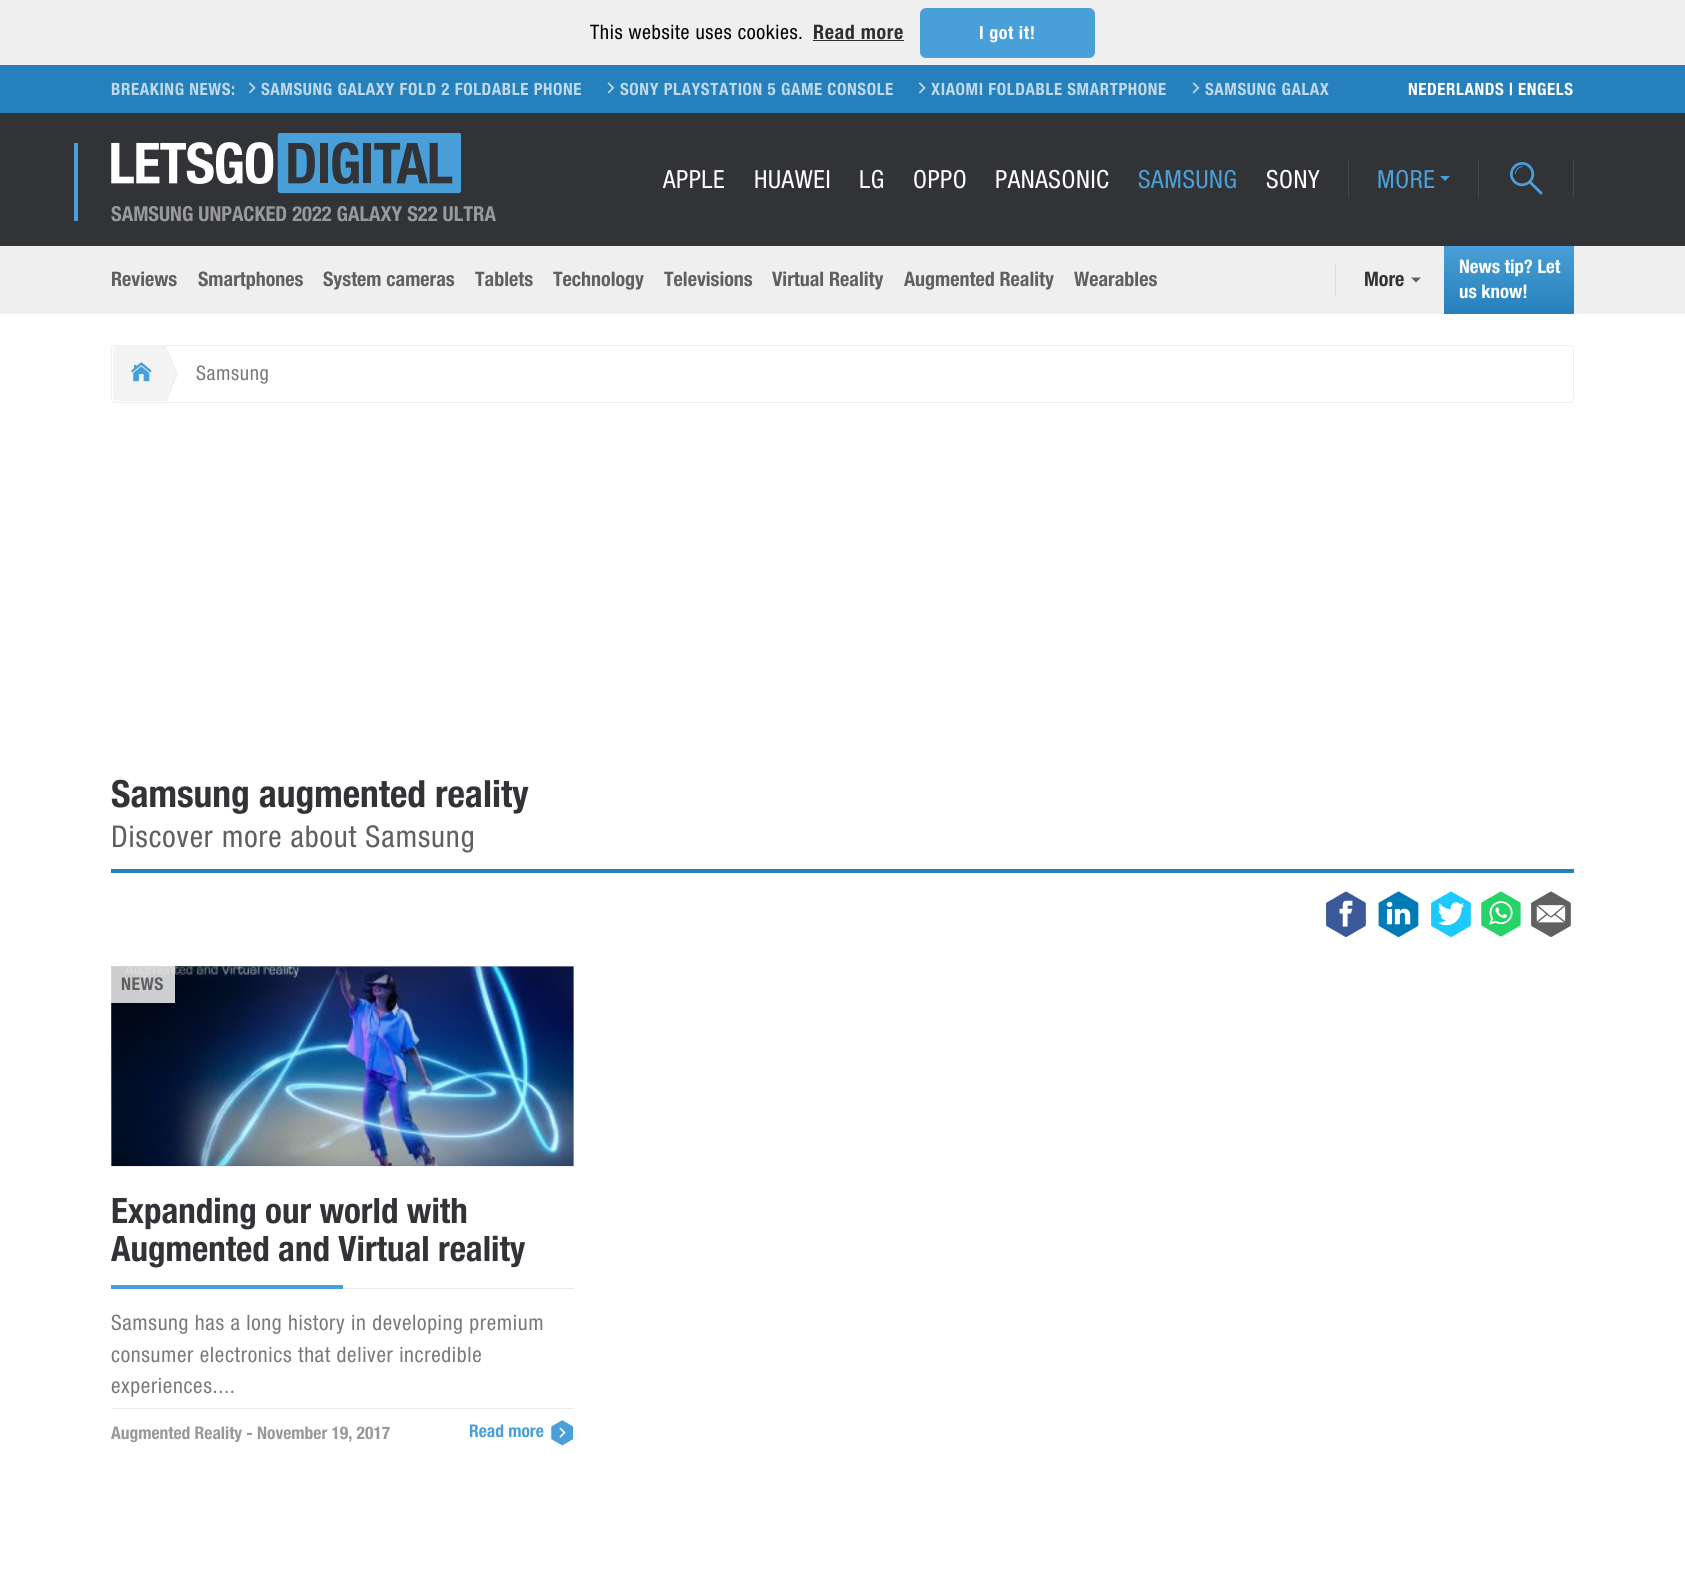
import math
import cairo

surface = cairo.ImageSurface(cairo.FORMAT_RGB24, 1685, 1572)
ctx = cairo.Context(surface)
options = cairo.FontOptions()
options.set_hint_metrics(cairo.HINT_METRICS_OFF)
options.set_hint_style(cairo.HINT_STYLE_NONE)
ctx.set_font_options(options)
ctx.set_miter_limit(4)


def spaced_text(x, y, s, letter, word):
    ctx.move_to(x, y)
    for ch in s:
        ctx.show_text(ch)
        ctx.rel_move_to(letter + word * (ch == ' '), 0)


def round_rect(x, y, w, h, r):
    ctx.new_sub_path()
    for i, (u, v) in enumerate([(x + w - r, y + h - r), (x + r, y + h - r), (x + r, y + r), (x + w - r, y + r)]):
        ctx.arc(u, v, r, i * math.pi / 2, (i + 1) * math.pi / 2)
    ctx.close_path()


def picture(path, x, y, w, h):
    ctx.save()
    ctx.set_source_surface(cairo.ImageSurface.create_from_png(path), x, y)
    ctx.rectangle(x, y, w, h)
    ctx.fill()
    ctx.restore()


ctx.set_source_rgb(1, 1, 1)
ctx.paint()
ctx.set_source_rgb(0.937, 0.937, 0.937)
ctx.rectangle(0, 0, 1685, 65)
ctx.fill()
ctx.select_font_face("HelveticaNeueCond")
ctx.set_font_size(20)
ctx.set_source_rgb(0, 0, 0)
spaced_text(590, 39, "This website uses cookies.", 0.6, 0)
ctx.select_font_face("HelveticaNeueCond", cairo.FONT_SLANT_NORMAL, cairo.FONT_WEIGHT_BOLD)
ctx.set_source_rgb(0.188, 0.188, 0.188)
spaced_text(813, 39, "Read more", 0.6, 0)
ctx.rectangle(813, 40, 91, 1)
ctx.fill()
ctx.set_source_rgb(0.286, 0.624, 0.843)
round_rect(920, 8, 175, 50, 6)
ctx.fill()
ctx.set_font_size(18)
ctx.set_source_rgb(1, 1, 1)
spaced_text(979, 39, "I got it!", 0.6, 0)
ctx.set_source_rgb(0.196, 0.2, 0.216)
ctx.rectangle(0, 113, 1685, 133)
ctx.fill()
ctx.set_source_rgb(0.149, 0.502, 0.733)
ctx.rectangle(0, 65, 1685, 48)
ctx.fill()
ctx.set_font_size(16.9)
ctx.set_source_rgb(0.745, 0.851, 0.922)
spaced_text(111, 95, "BREAKING NEWS:", 0.6, 0)
picture("img1.png", 249, 82, 7, 12)
spaced_text(261, 95, "SAMSUNG GALAXY FOLD 2 FOLDABLE PHONE", 0.6, 0)
picture("img2.png", 607, 82, 8, 12)
spaced_text(620, 95, "SONY PLAYSTATION 5 GAME CONSOLE", 0.6, 0)
picture("img3.png", 918, 82, 8, 12)
spaced_text(931, 95, "XIAOMI FOLDABLE SMARTPHONE", 0.6, 0)
picture("img2.png", 1192, 82, 8, 12)
spaced_text(1205, 95, "SAMSUNG GALAX", 0.6, 0)
ctx.set_source_rgb(1, 1, 1)
spaced_text(1408, 95, "NEDERLANDS | ENGELS", 0.6, 0)
ctx.select_font_face("HelveticaNeueCond")
ctx.set_font_size(25)
spaced_text(663, 188, "APPLE", 0.6, 0)
spaced_text(754, 188, "HUAWEI", 0.6, 0)
spaced_text(859, 188, "LG", 0.6, 0)
spaced_text(913, 188, "OPPO", 0.6, 0)
spaced_text(995, 188, "PANASONIC", 0.6, 0)
ctx.set_source_rgb(0.286, 0.624, 0.843)
spaced_text(1138, 188, "SAMSUNG", 0.6, 0)
ctx.set_source_rgb(1, 1, 1)
spaced_text(1266, 188, "SONY", 0.6, 0)
ctx.set_source_rgb(0.267, 0.275, 0.294)
ctx.rectangle(1478, 160, 1, 38)
ctx.fill()
ctx.rectangle(1348, 160, 1, 38)
ctx.fill()
ctx.set_source_rgb(0.286, 0.624, 0.843)
spaced_text(1377, 188, "MORE", 0.6, 0)
ctx.new_path()
ctx.move_to(1440, 176)
ctx.line_to(1450, 176)
ctx.line_to(1445, 181)
ctx.close_path()
ctx.fill()
ctx.set_source_rgb(0.267, 0.275, 0.294)
ctx.rectangle(1573, 160, 1, 38)
ctx.fill()
picture("img4.png", 1510, 162, 33, 33)
ctx.set_source_rgb(0.286, 0.624, 0.843)
ctx.rectangle(74, 143, 4, 78)
ctx.fill()
picture("img5.png", 111, 133, 350, 61)
ctx.select_font_face("HelveticaNeueCond", cairo.FONT_SLANT_NORMAL, cairo.FONT_WEIGHT_BOLD)
ctx.set_font_size(20.6)
ctx.set_source_rgb(0.596, 0.6, 0.608)
ctx.move_to(111, 221)
ctx.show_text("SAMSUNG UNPACKED 2022 GALAXY S22 ULTRA")
ctx.set_source_rgb(0.937, 0.937, 0.937)
ctx.rectangle(0, 246, 1685, 68)
ctx.fill()
ctx.set_font_size(20)
ctx.set_source_rgb(0.376, 0.376, 0.376)
ctx.move_to(111, 286)
ctx.show_text("Reviews")
ctx.move_to(198, 286)
ctx.show_text("Smartphones")
ctx.move_to(323, 286)
ctx.show_text("System cameras")
ctx.move_to(475, 286)
ctx.show_text("Tablets")
ctx.move_to(553, 286)
ctx.show_text("Technology")
ctx.move_to(664, 286)
ctx.show_text("Televisions")
ctx.move_to(772, 286)
ctx.show_text("Virtual Reality")
ctx.move_to(904, 286)
ctx.show_text("Augmented Reality")
ctx.move_to(1074, 286)
ctx.show_text("Wearables")
ctx.set_source_rgb(0.863, 0.863, 0.863)
ctx.rectangle(1335, 265, 1, 30)
ctx.fill()
ctx.set_source_rgb(0.196, 0.2, 0.216)
ctx.move_to(1364, 286)
ctx.show_text("More")
ctx.set_source_rgb(0.376, 0.376, 0.376)
ctx.new_path()
ctx.move_to(1411, 277.5)
ctx.line_to(1421, 277.5)
ctx.line_to(1416, 282.5)
ctx.close_path()
ctx.fill()
gradient = cairo.LinearGradient(1509, 246, 1509, 314)
gradient.add_color_stop_rgba(0, 0.286, 0.624, 0.843, 1)
gradient.add_color_stop_rgba(1, 0.149, 0.502, 0.733, 1)
ctx.set_source(gradient)
ctx.rectangle(1444, 246, 130, 68)
ctx.fill()
ctx.set_font_size(18.75)
ctx.set_source_rgb(1, 1, 1)
ctx.move_to(1459, 273)
ctx.show_text("News tip? Let")
ctx.move_to(1459, 298)
ctx.show_text("us know!")
round_rect(111.5, 345.5, 1462, 57, 3.5)
ctx.set_source_rgb(0.937, 0.937, 0.937)
ctx.set_line_width(1)
ctx.stroke()
ctx.set_source_rgb(0.957, 0.957, 0.957)
ctx.new_path()
ctx.move_to(117, 346)
ctx.line_to(165, 346)
ctx.line_to(165, 401)
ctx.line_to(117, 401)
ctx.curve_to(115, 401, 113, 399, 113, 397)
ctx.line_to(113, 350)
ctx.curve_to(113, 348, 115, 346, 117, 346)
ctx.close_path()
ctx.fill()
ctx.save()
ctx.rectangle(113, 346, 65, 55)
ctx.clip()
ctx.set_source_rgb(0.937, 0.937, 0.937)
ctx.new_path()
ctx.move_to(165, 404)
ctx.line_to(165, 344)
ctx.line_to(178, 374)
ctx.close_path()
ctx.fill()
ctx.set_source_rgb(0.957, 0.957, 0.957)
ctx.new_path()
ctx.move_to(164, 404)
ctx.line_to(164, 344)
ctx.line_to(176, 374)
ctx.close_path()
ctx.fill()
ctx.restore()
picture("img6.png", 131, 362, 21, 20)
ctx.select_font_face("HelveticaNeueCond")
ctx.set_font_size(20)
ctx.set_source_rgb(0.478, 0.478, 0.478)
spaced_text(196, 380, "Samsung", 0.6, 0)
ctx.select_font_face("HelveticaNeueCond", cairo.FONT_SLANT_NORMAL, cairo.FONT_WEIGHT_BOLD)
ctx.set_font_size(37.5)
ctx.set_source_rgb(0.196, 0.2, 0.216)
ctx.move_to(111, 807)
ctx.show_text("Samsung augmented reality")
ctx.select_font_face("HelveticaNeueCond")
ctx.set_font_size(30)
ctx.set_source_rgb(0.376, 0.376, 0.376)
spaced_text(111, 847, "Discover more about Samsung", 0.9, 0)
ctx.set_source_rgb(0.149, 0.502, 0.733)
ctx.rectangle(111, 869, 1463, 4)
ctx.fill()
picture("img7.png", 1326, 891, 40, 46)
picture("img8.png", 1378, 891, 41, 46)
picture("img9.png", 1431, 891, 40, 46)
picture("img10.png", 1481, 891, 40, 46)
picture("img11.png", 1531, 891, 40, 46)
ctx.set_source_rgb(0.937, 0.937, 0.937)
ctx.rectangle(111, 966, 463, 200)
ctx.fill()
picture("img12.png", 111, 966, 463, 201)
ctx.rectangle(111.5, 966.5, 462, 199)
ctx.set_source_rgba(0, 0, 0, 0.05)
ctx.stroke()
ctx.save()
ctx.rectangle(111, 966, 463, 200)
ctx.clip()
gradient = cairo.LinearGradient(26, 875, 247, 1096)
gradient.add_color_stop_rgba(0, 0, 0, 0, 1)
gradient.add_color_stop_rgba(0.5, 0, 0, 0, 0.5)
gradient.add_color_stop_rgba(1, 0, 0, 0, 0)
ctx.set_source(gradient)
ctx.new_path()
ctx.move_to(-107, 1007)
ctx.line_to(158, 742)
ctx.line_to(379, 963)
ctx.line_to(114, 1228)
ctx.close_path()
ctx.fill()
ctx.restore()
ctx.set_source_rgba(1, 1, 1, 0.8)
ctx.rectangle(111, 966, 64, 37)
ctx.fill()
ctx.select_font_face("HelveticaNeueCond", cairo.FONT_SLANT_NORMAL, cairo.FONT_WEIGHT_BOLD)
ctx.set_font_size(17.5)
ctx.set_source_rgb(0.376, 0.376, 0.376)
spaced_text(121, 990, "NEWS", 0.5, 0)
ctx.set_font_size(35)
ctx.set_source_rgb(0.196, 0.2, 0.216)
ctx.move_to(111, 1223)
ctx.show_text("Expanding our world with")
ctx.move_to(111, 1261)
ctx.show_text("Augmented and Virtual reality")
ctx.set_source_rgb(0.286, 0.624, 0.843)
ctx.rectangle(111, 1285, 232, 4)
ctx.fill()
ctx.set_source_rgb(0.922, 0.922, 0.922)
ctx.rectangle(343, 1288, 231, 1)
ctx.fill()
ctx.select_font_face("HelveticaNeueCond")
ctx.set_font_size(21.25)
ctx.set_source_rgb(0.478, 0.478, 0.478)
spaced_text(111, 1330, "Samsung has a long history in developing premium", 0.65, 0)
spaced_text(111, 1362, "consumer electronics that deliver incredible", 0.65, 0)
spaced_text(111, 1393, "experiences....", 0.65, 0)
ctx.set_source_rgb(0.922, 0.922, 0.922)
ctx.rectangle(111, 1408, 463, 1)
ctx.fill()
ctx.select_font_face("HelveticaNeueCond", cairo.FONT_SLANT_NORMAL, cairo.FONT_WEIGHT_BOLD)
ctx.set_font_size(17.5)
ctx.set_source_rgb(0.596, 0.6, 0.608)
ctx.move_to(111, 1439)
ctx.show_text("Augmented Reality - November 19, 2017")
ctx.set_source_rgb(0.286, 0.624, 0.843)
ctx.move_to(469, 1437)
ctx.show_text("Read more")
picture("img13.png", 551, 1420, 23, 26)
surface.write_to_png("page.png")
